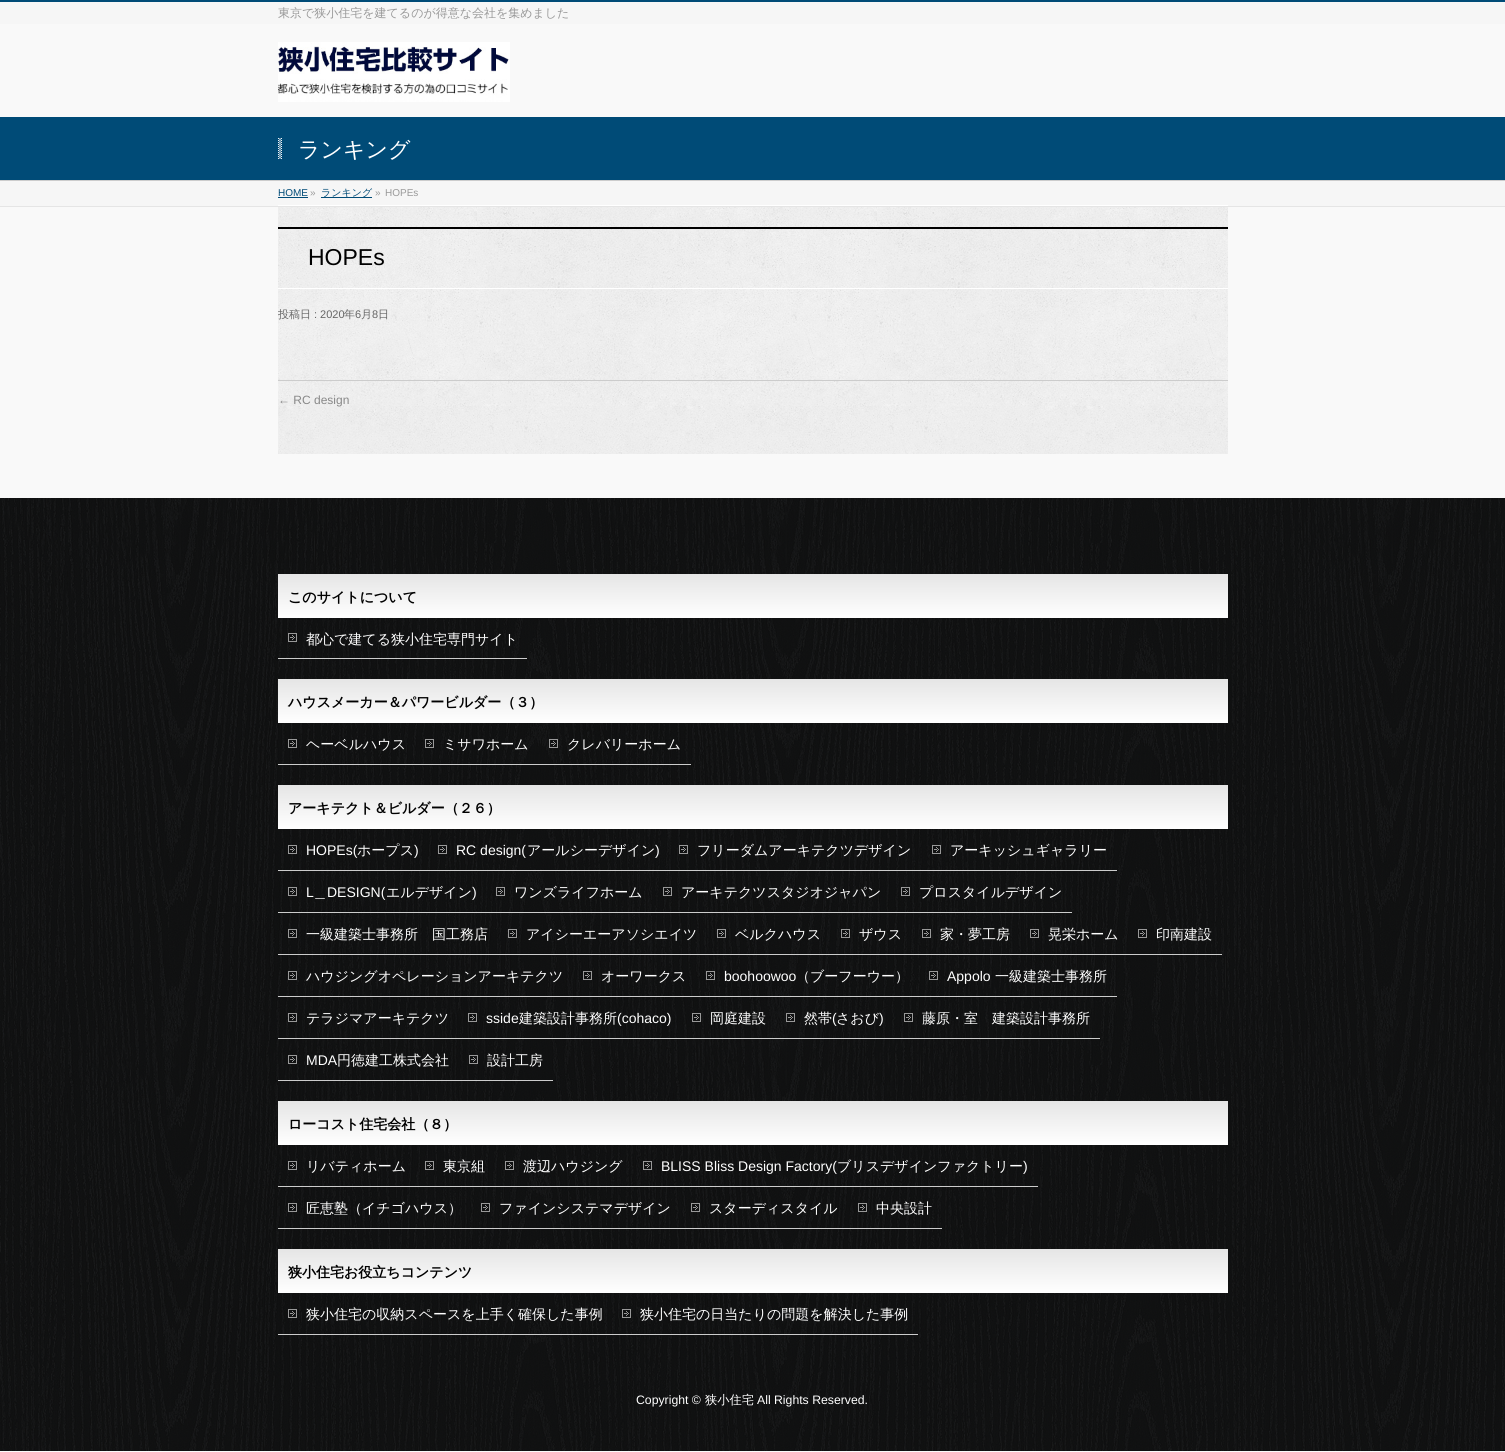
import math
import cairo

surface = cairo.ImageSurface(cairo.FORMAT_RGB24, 1505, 1452)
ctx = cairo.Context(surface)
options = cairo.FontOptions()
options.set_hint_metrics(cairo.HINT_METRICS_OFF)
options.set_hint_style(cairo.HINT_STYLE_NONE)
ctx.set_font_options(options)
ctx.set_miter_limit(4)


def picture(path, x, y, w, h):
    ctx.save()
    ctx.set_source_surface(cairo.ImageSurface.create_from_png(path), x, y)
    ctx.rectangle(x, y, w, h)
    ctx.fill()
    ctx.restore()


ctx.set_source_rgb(0.976, 0.976, 0.976)
ctx.paint()
ctx.set_source_rgb(0.961, 0.961, 0.961)
ctx.rectangle(0, 2, 1505, 22)
ctx.fill()
ctx.set_source_rgb(0, 0.294, 0.467)
ctx.rectangle(0, 0, 1505, 2)
ctx.fill()
ctx.select_font_face("WenQuanYi Zen Hei Medium")
ctx.set_font_size(12)
ctx.set_source_rgb(0.6, 0.6, 0.6)
ctx.move_to(278, 17)
ctx.show_text("東京で狭小住宅を建てるのが得意な会社を集めました")
picture("img1.png", 278, 42, 232, 60)
ctx.set_source_rgb(0, 0.294, 0.467)
ctx.rectangle(0, 117, 1505, 63)
ctx.fill()
ctx.set_source_rgb(0.8, 0.8, 0.8)
ctx.rectangle(0, 180, 1505, 1)
ctx.fill()
picture("img2.png", 278, 138, 4, 21)
ctx.set_font_size(22)
ctx.set_source_rgb(1, 1, 1)
ctx.move_to(298, 157)
ctx.show_text("ランキング")
ctx.set_source_rgb(0.961, 0.961, 0.961)
ctx.rectangle(0, 181, 1505, 25)
ctx.fill()
ctx.set_source_rgb(0.898, 0.898, 0.898)
ctx.rectangle(0, 206, 1505, 1)
ctx.fill()
ctx.set_source_rgb(1, 1, 1)
ctx.rectangle(278, 205, 950, 1)
ctx.fill()
ctx.select_font_face("Liberation Sans")
ctx.set_font_size(10)
ctx.set_source_rgb(0, 0.294, 0.467)
ctx.move_to(278, 196)
ctx.show_text("HOME")
ctx.rectangle(278, 197, 30, 1)
ctx.fill()
ctx.set_source_rgb(0.6, 0.6, 0.6)
ctx.move_to(310, 196)
ctx.show_text("»")
ctx.set_source_rgb(0, 0.294, 0.467)
ctx.rectangle(321, 197, 51, 1)
ctx.fill()
ctx.select_font_face("WenQuanYi Zen Hei Medium")
ctx.move_to(321, 196)
ctx.show_text("ランキング")
ctx.select_font_face("Liberation Sans")
ctx.set_source_rgb(0.6, 0.6, 0.6)
ctx.move_to(375, 196)
ctx.show_text("»")
ctx.move_to(385, 196)
ctx.show_text("HOPEs")
picture("img3.png", 278, 207, 950, 247)
ctx.set_source_rgb(0, 0, 0)
ctx.rectangle(278, 227, 950, 2)
ctx.fill()
ctx.set_source_rgb(1, 1, 1)
ctx.rectangle(278, 288, 950, 1)
ctx.fill()
ctx.set_font_size(23)
ctx.set_source_rgb(0, 0, 0)
ctx.move_to(308, 265)
ctx.show_text("HOPEs")
ctx.select_font_face("WenQuanYi Zen Hei Medium")
ctx.set_font_size(11)
ctx.set_source_rgb(0.4, 0.4, 0.4)
ctx.move_to(278, 318)
ctx.show_text("投稿日")
ctx.select_font_face("Liberation Sans")
ctx.move_to(314, 318)
ctx.show_text(": 2020")
ctx.select_font_face("WenQuanYi Zen Hei Medium")
ctx.move_to(344, 318)
ctx.show_text("年")
ctx.select_font_face("Liberation Sans")
ctx.move_to(355, 318)
ctx.show_text("6")
ctx.select_font_face("WenQuanYi Zen Hei Medium")
ctx.move_to(361, 318)
ctx.show_text("月")
ctx.select_font_face("Liberation Sans")
ctx.move_to(372, 318)
ctx.show_text("8")
ctx.select_font_face("WenQuanYi Zen Hei Medium")
ctx.move_to(378, 318)
ctx.show_text("日")
ctx.set_source_rgb(0.8, 0.8, 0.8)
ctx.rectangle(278, 380, 950, 1)
ctx.fill()
ctx.select_font_face("Liberation Sans")
ctx.set_font_size(12)
ctx.set_source_rgb(0.533, 0.533, 0.533)
ctx.move_to(278, 404)
ctx.show_text("← RC design")
picture("img4.png", 0, 498, 1505, 953)
gradient = cairo.LinearGradient(278, 574, 278, 618)
gradient.add_color_stop_rgba(0, 0.898, 0.898, 0.898, 1)
gradient.add_color_stop_rgba(1, 1, 1, 1, 1)
ctx.set_source(gradient)
ctx.rectangle(278, 574, 950, 44)
ctx.fill()
ctx.select_font_face("WenQuanYi Zen Hei", cairo.FONT_SLANT_NORMAL, cairo.FONT_WEIGHT_BOLD)
ctx.set_font_size(14)
ctx.set_source_rgb(0, 0, 0)
ctx.move_to(288, 602)
ctx.show_text("このサイトについて")
ctx.set_source_rgb(0.8, 0.8, 0.8)
ctx.rectangle(278, 658, 249, 1)
ctx.fill()
picture("img5.png", 288, 633, 9, 9)
ctx.select_font_face("WenQuanYi Zen Hei Medium")
ctx.set_source_rgb(1, 1, 1)
ctx.move_to(306, 644)
ctx.show_text("都心で建てる狭小住宅専門サイト")
gradient = cairo.LinearGradient(278, 679, 278, 723)
gradient.add_color_stop_rgba(0, 0.898, 0.898, 0.898, 1)
gradient.add_color_stop_rgba(1, 1, 1, 1, 1)
ctx.set_source(gradient)
ctx.rectangle(278, 679, 950, 44)
ctx.fill()
ctx.select_font_face("WenQuanYi Zen Hei", cairo.FONT_SLANT_NORMAL, cairo.FONT_WEIGHT_BOLD)
ctx.set_source_rgb(0, 0, 0)
ctx.move_to(288, 707)
ctx.show_text("ハウスメーカー＆パワービルダー（３）")
ctx.set_source_rgb(0.8, 0.8, 0.8)
ctx.rectangle(278, 764, 413, 1)
ctx.fill()
picture("img6.png", 288, 739, 9, 9)
ctx.select_font_face("WenQuanYi Zen Hei Medium")
ctx.set_source_rgb(1, 1, 1)
ctx.move_to(306, 749)
ctx.show_text("ヘーベルハウス")
picture("img7.png", 425, 739, 9, 9)
ctx.move_to(443, 749)
ctx.show_text("ミサワホーム")
picture("img8.png", 549, 739, 9, 9)
ctx.move_to(567, 749)
ctx.show_text("クレバリーホーム")
gradient = cairo.LinearGradient(278, 785, 278, 829)
gradient.add_color_stop_rgba(0, 0.898, 0.898, 0.898, 1)
gradient.add_color_stop_rgba(1, 1, 1, 1, 1)
ctx.set_source(gradient)
ctx.rectangle(278, 785, 950, 44)
ctx.fill()
ctx.select_font_face("WenQuanYi Zen Hei", cairo.FONT_SLANT_NORMAL, cairo.FONT_WEIGHT_BOLD)
ctx.set_source_rgb(0, 0, 0)
ctx.move_to(288, 813)
ctx.show_text("アーキテクト＆ビルダー（２６）")
ctx.set_source_rgb(0.8, 0.8, 0.8)
ctx.rectangle(278, 870, 839, 1)
ctx.fill()
picture("img9.png", 288, 845, 9, 9)
ctx.select_font_face("Liberation Sans")
ctx.set_source_rgb(1, 1, 1)
ctx.move_to(306, 855)
ctx.show_text("HOPEs(")
ctx.select_font_face("WenQuanYi Zen Hei Medium")
ctx.move_to(357, 855)
ctx.show_text("ホープス")
ctx.select_font_face("Liberation Sans")
ctx.move_to(414, 855)
ctx.show_text(")")
picture("img10.png", 438, 845, 9, 9)
ctx.move_to(456, 855)
ctx.show_text("RC design(")
ctx.select_font_face("WenQuanYi Zen Hei Medium")
ctx.move_to(527, 855)
ctx.show_text("アールシーデザイン")
ctx.select_font_face("Liberation Sans")
ctx.move_to(655, 855)
ctx.show_text(")")
picture("img11.png", 679, 845, 9, 9)
ctx.select_font_face("WenQuanYi Zen Hei Medium")
ctx.move_to(697, 855)
ctx.show_text("フリーダムアーキテクツデザイン")
picture("img12.png", 932, 845, 9, 9)
ctx.move_to(950, 855)
ctx.show_text("アーキッシュギャラリー")
ctx.set_source_rgb(0.8, 0.8, 0.8)
ctx.rectangle(278, 912, 794, 1)
ctx.fill()
picture("img13.png", 288, 887, 9, 9)
ctx.select_font_face("Liberation Sans")
ctx.set_source_rgb(1, 1, 1)
ctx.move_to(306, 897)
ctx.show_text("L")
ctx.move_to(327, 897)
ctx.show_text("DESIGN(")
ctx.select_font_face("WenQuanYi Zen Hei Medium")
ctx.move_to(386, 897)
ctx.show_text("エルデザイン")
ctx.select_font_face("Liberation Sans")
ctx.move_to(472, 897)
ctx.show_text(")")
ctx.select_font_face("WenQuanYi Zen Hei Medium")
ctx.move_to(313, 897)
ctx.show_text("＿")
picture("img14.png", 496, 887, 9, 9)
ctx.move_to(514, 897)
ctx.show_text("ワンズライフホーム")
picture("img15.png", 663, 887, 9, 9)
ctx.move_to(681, 897)
ctx.show_text("アーキテクツスタジオジャパン")
picture("img16.png", 901, 887, 9, 9)
ctx.move_to(919, 897)
ctx.show_text("プロスタイルデザイン")
ctx.set_source_rgb(0.8, 0.8, 0.8)
ctx.rectangle(278, 954, 944, 1)
ctx.fill()
picture("img17.png", 288, 929, 9, 9)
ctx.set_source_rgb(1, 1, 1)
ctx.move_to(306, 939)
ctx.show_text("一級建築士事務所　国工務店")
picture("img18.png", 508, 929, 9, 9)
ctx.move_to(526, 939)
ctx.show_text("アイシーエーアソシエイツ")
picture("img19.png", 717, 929, 9, 9)
ctx.move_to(735, 939)
ctx.show_text("ベルクハウス")
picture("img20.png", 841, 929, 9, 9)
ctx.move_to(859, 939)
ctx.show_text("ザウス")
picture("img21.png", 922, 929, 9, 9)
ctx.move_to(940, 939)
ctx.show_text("家・夢工房")
picture("img22.png", 1030, 929, 9, 9)
ctx.move_to(1048, 939)
ctx.show_text("晃栄ホーム")
picture("img23.png", 1138, 929, 9, 9)
ctx.move_to(1156, 939)
ctx.show_text("印南建設")
ctx.set_source_rgb(0.8, 0.8, 0.8)
ctx.rectangle(278, 996, 839, 1)
ctx.fill()
picture("img24.png", 288, 971, 9, 9)
ctx.set_source_rgb(1, 1, 1)
ctx.move_to(306, 981)
ctx.show_text("ハウジングオペレーションアーキテクツ")
picture("img25.png", 583, 971, 9, 9)
ctx.move_to(601, 981)
ctx.show_text("オーワークス")
picture("img26.png", 706, 971, 9, 9)
ctx.select_font_face("Liberation Sans")
ctx.move_to(724, 981)
ctx.show_text("boohoowoo")
ctx.select_font_face("WenQuanYi Zen Hei Medium")
ctx.move_to(796, 981)
ctx.show_text("（ブーフーウー）")
picture("img27.png", 929, 971, 9, 9)
ctx.select_font_face("Liberation Sans")
ctx.move_to(947, 981)
ctx.show_text("Appolo")
ctx.select_font_face("WenQuanYi Zen Hei Medium")
ctx.move_to(995, 981)
ctx.show_text("一級建築士事務所")
ctx.set_source_rgb(0.8, 0.8, 0.8)
ctx.rectangle(278, 1038, 822, 1)
ctx.fill()
picture("img28.png", 288, 1013, 9, 9)
ctx.set_source_rgb(1, 1, 1)
ctx.move_to(306, 1023)
ctx.show_text("テラジマアーキテクツ")
picture("img29.png", 468, 1013, 9, 9)
ctx.select_font_face("Liberation Sans")
ctx.move_to(486, 1023)
ctx.show_text("sside")
ctx.select_font_face("WenQuanYi Zen Hei Medium")
ctx.move_to(519, 1023)
ctx.show_text("建築設計事務所")
ctx.select_font_face("Liberation Sans")
ctx.move_to(617, 1023)
ctx.show_text("(cohaco)")
picture("img30.png", 692, 1013, 9, 9)
ctx.select_font_face("WenQuanYi Zen Hei Medium")
ctx.move_to(710, 1023)
ctx.show_text("岡庭建設")
picture("img31.png", 786, 1013, 9, 9)
ctx.move_to(804, 1023)
ctx.show_text("然帯")
ctx.select_font_face("Liberation Sans")
ctx.move_to(832, 1023)
ctx.show_text("(")
ctx.select_font_face("WenQuanYi Zen Hei Medium")
ctx.move_to(836, 1023)
ctx.show_text("さおび")
ctx.select_font_face("Liberation Sans")
ctx.move_to(879, 1023)
ctx.show_text(")")
picture("img32.png", 904, 1013, 9, 9)
ctx.select_font_face("WenQuanYi Zen Hei Medium")
ctx.move_to(922, 1023)
ctx.show_text("藤原・室　建築設計事務所")
ctx.set_source_rgb(0.8, 0.8, 0.8)
ctx.rectangle(278, 1080, 275, 1)
ctx.fill()
picture("img33.png", 288, 1055, 9, 9)
ctx.select_font_face("Liberation Sans")
ctx.set_source_rgb(1, 1, 1)
ctx.move_to(306, 1065)
ctx.show_text("MDA")
ctx.select_font_face("WenQuanYi Zen Hei Medium")
ctx.move_to(337, 1065)
ctx.show_text("円徳建工株式会社")
picture("img34.png", 469, 1055, 9, 9)
ctx.move_to(487, 1065)
ctx.show_text("設計工房")
gradient = cairo.LinearGradient(278, 1101, 278, 1145)
gradient.add_color_stop_rgba(0, 0.898, 0.898, 0.898, 1)
gradient.add_color_stop_rgba(1, 1, 1, 1, 1)
ctx.set_source(gradient)
ctx.rectangle(278, 1101, 950, 44)
ctx.fill()
ctx.select_font_face("WenQuanYi Zen Hei", cairo.FONT_SLANT_NORMAL, cairo.FONT_WEIGHT_BOLD)
ctx.set_source_rgb(0, 0, 0)
ctx.move_to(288, 1129)
ctx.show_text("ローコスト住宅会社（８）")
ctx.set_source_rgb(0.8, 0.8, 0.8)
ctx.rectangle(278, 1186, 760, 1)
ctx.fill()
picture("img35.png", 288, 1161, 9, 9)
ctx.select_font_face("WenQuanYi Zen Hei Medium")
ctx.set_source_rgb(1, 1, 1)
ctx.move_to(306, 1171)
ctx.show_text("リバティホーム")
picture("img36.png", 425, 1161, 9, 9)
ctx.move_to(443, 1171)
ctx.show_text("東京組")
picture("img37.png", 505, 1161, 9, 9)
ctx.move_to(523, 1171)
ctx.show_text("渡辺ハウジング")
picture("img38.png", 643, 1161, 9, 9)
ctx.select_font_face("Liberation Sans")
ctx.move_to(661, 1171)
ctx.show_text("BLISS Bliss Design Factory(")
ctx.select_font_face("WenQuanYi Zen Hei Medium")
ctx.move_to(837, 1171)
ctx.show_text("ブリスデザインファクトリー")
ctx.select_font_face("Liberation Sans")
ctx.move_to(1023, 1171)
ctx.show_text(")")
ctx.set_source_rgb(0.8, 0.8, 0.8)
ctx.rectangle(278, 1228, 664, 1)
ctx.fill()
picture("img39.png", 288, 1203, 9, 9)
ctx.select_font_face("WenQuanYi Zen Hei Medium")
ctx.set_source_rgb(1, 1, 1)
ctx.move_to(306, 1213)
ctx.show_text("匠恵塾（イチゴハウス）")
picture("img40.png", 481, 1203, 9, 9)
ctx.move_to(499, 1213)
ctx.show_text("ファインシステマデザイン")
picture("img41.png", 691, 1203, 9, 9)
ctx.move_to(709, 1213)
ctx.show_text("スターディスタイル")
picture("img42.png", 858, 1203, 9, 9)
ctx.move_to(876, 1213)
ctx.show_text("中央設計")
gradient = cairo.LinearGradient(278, 1249, 278, 1293)
gradient.add_color_stop_rgba(0, 0.898, 0.898, 0.898, 1)
gradient.add_color_stop_rgba(1, 1, 1, 1, 1)
ctx.set_source(gradient)
ctx.rectangle(278, 1249, 950, 44)
ctx.fill()
ctx.select_font_face("WenQuanYi Zen Hei", cairo.FONT_SLANT_NORMAL, cairo.FONT_WEIGHT_BOLD)
ctx.set_source_rgb(0, 0, 0)
ctx.move_to(288, 1277)
ctx.show_text("狭小住宅お役立ちコンテンツ")
ctx.set_source_rgb(0.8, 0.8, 0.8)
ctx.rectangle(278, 1334, 640, 1)
ctx.fill()
picture("img43.png", 288, 1309, 9, 9)
ctx.select_font_face("WenQuanYi Zen Hei Medium")
ctx.set_source_rgb(1, 1, 1)
ctx.move_to(306, 1319)
ctx.show_text("狭小住宅の収納スペースを上手く確保した事例")
picture("img44.png", 622, 1309, 9, 9)
ctx.move_to(640, 1319)
ctx.show_text("狭小住宅の日当たりの問題を解決した事例")
ctx.select_font_face("Liberation Sans")
ctx.set_font_size(12.25)
ctx.move_to(636, 1404)
ctx.show_text("Copyright ©")
ctx.select_font_face("WenQuanYi Zen Hei Medium")
ctx.move_to(705, 1404)
ctx.show_text("狭小住宅")
ctx.select_font_face("Liberation Sans")
ctx.move_to(757, 1404)
ctx.show_text("All Rights Reserved.")
surface.write_to_png("page.png")
